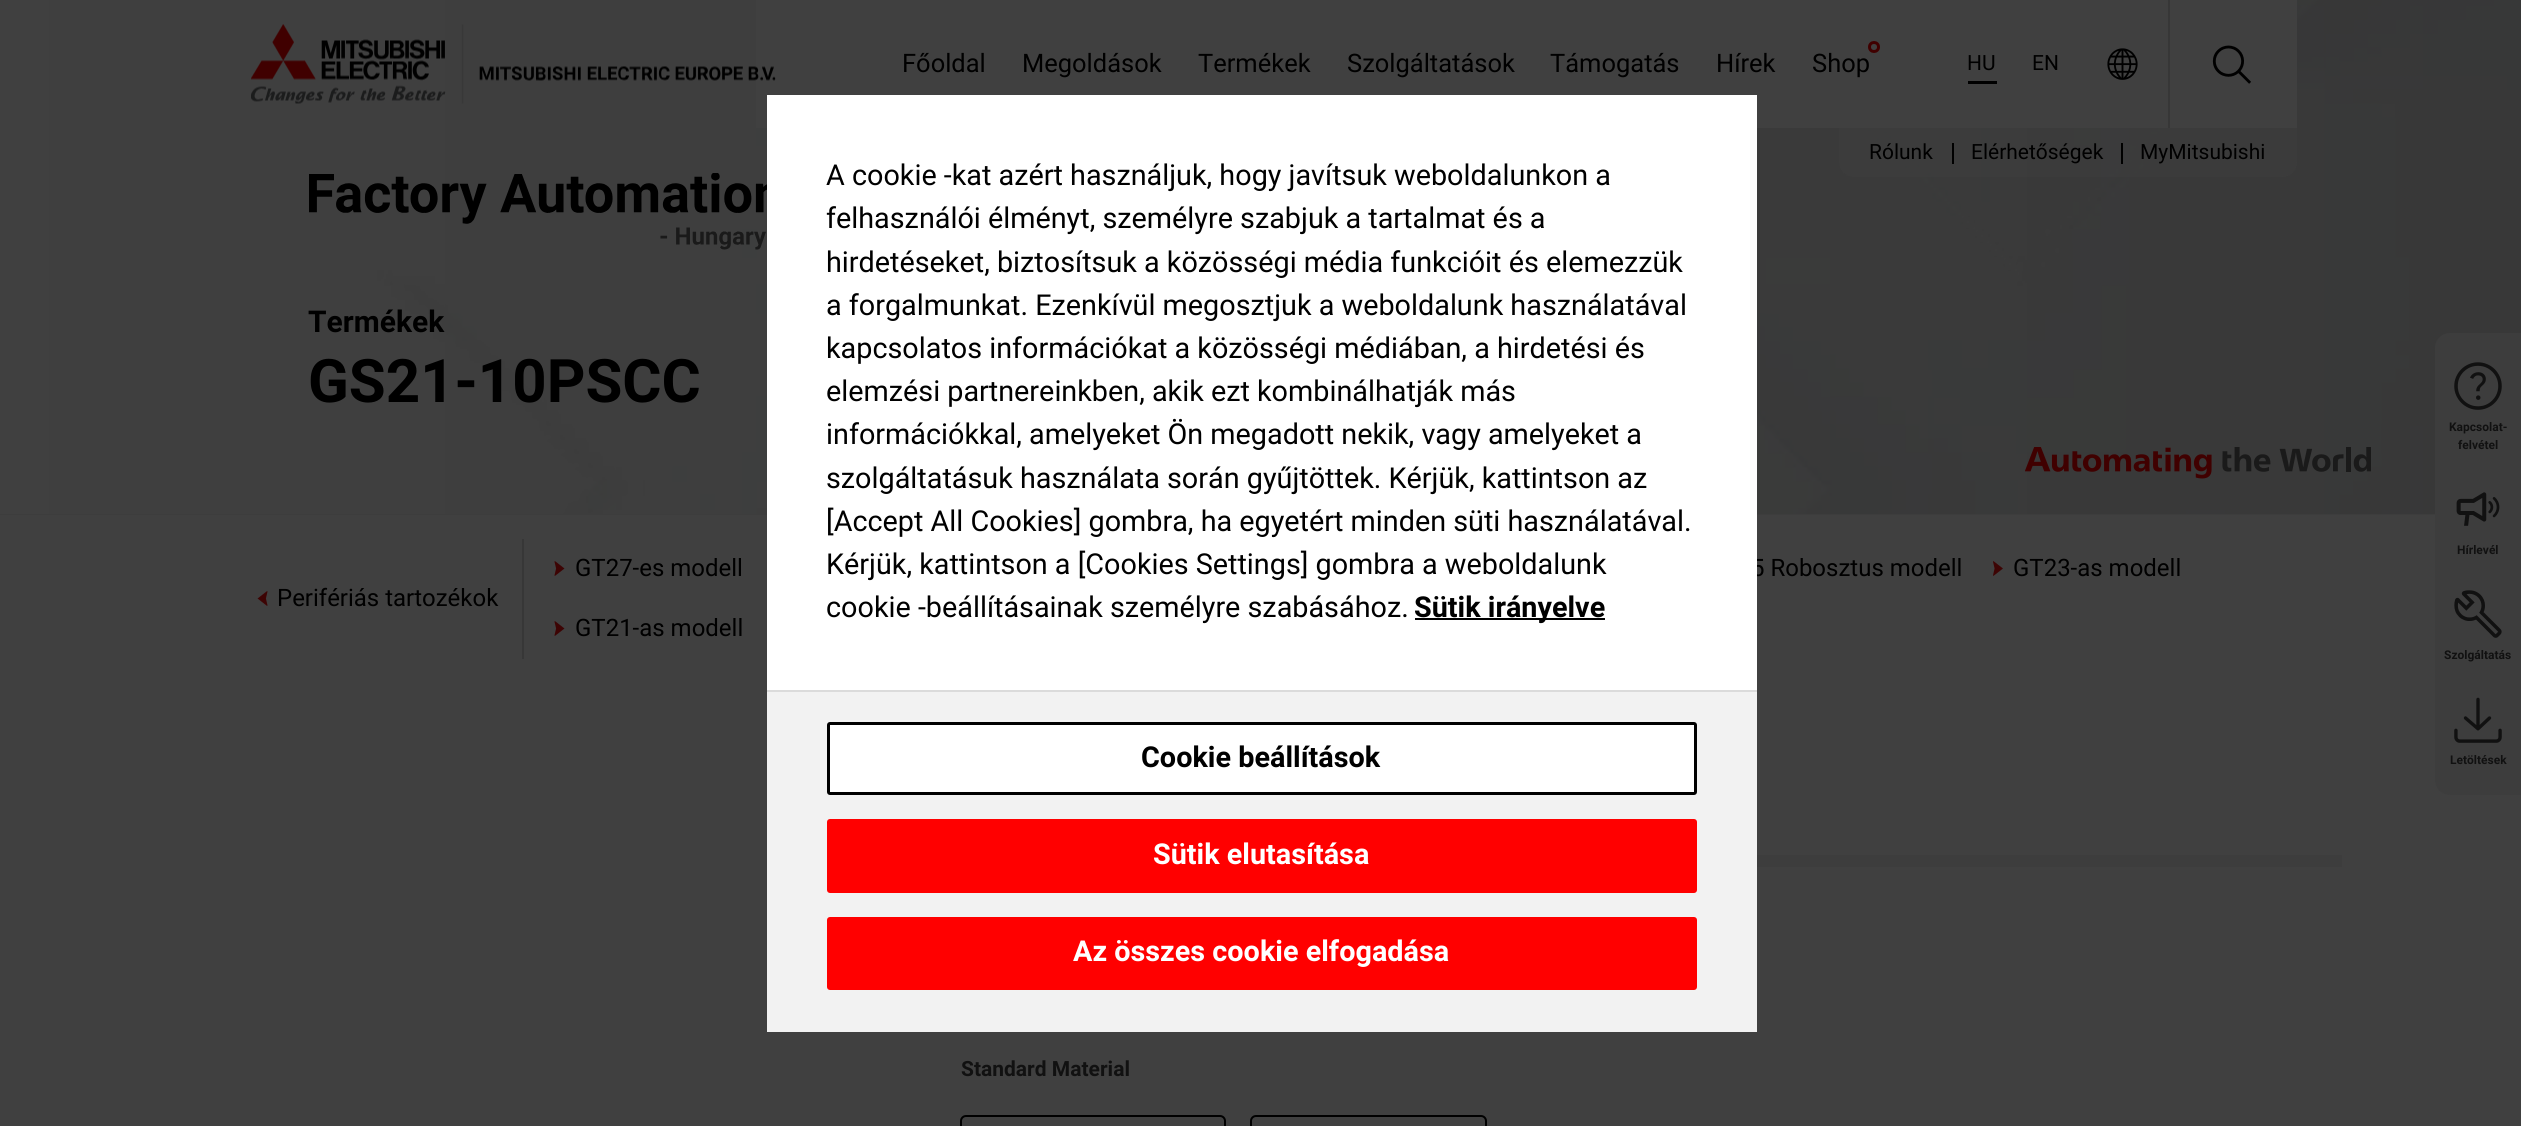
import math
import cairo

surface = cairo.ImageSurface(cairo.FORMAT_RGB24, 2521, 1126)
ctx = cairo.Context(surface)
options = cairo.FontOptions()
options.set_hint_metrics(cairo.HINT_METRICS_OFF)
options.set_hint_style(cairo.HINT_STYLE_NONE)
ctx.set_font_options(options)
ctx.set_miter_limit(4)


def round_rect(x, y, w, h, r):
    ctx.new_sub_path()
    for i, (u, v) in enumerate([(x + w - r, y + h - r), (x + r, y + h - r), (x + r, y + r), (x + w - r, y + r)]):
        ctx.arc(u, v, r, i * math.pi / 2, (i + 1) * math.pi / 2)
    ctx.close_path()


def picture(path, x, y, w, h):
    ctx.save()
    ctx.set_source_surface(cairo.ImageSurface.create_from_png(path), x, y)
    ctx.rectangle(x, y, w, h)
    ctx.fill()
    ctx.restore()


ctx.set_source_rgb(0.251, 0.251, 0.251)
ctx.paint()
picture("img4.png", 0, 0, 2521, 514)
ctx.set_source_rgb(0.251, 0.251, 0.251)
ctx.rectangle(756, 0, 1541, 128)
ctx.fill()
picture("img1.png", 251, 24, 525, 80)
ctx.select_font_face("Roboto")
ctx.set_font_size(25.5)
ctx.set_source_rgb(0, 0, 0)
ctx.move_to(902, 72)
ctx.show_text("Főoldal")
ctx.move_to(1022, 72)
ctx.show_text("Megoldások")
ctx.move_to(1198, 72)
ctx.show_text("Termékek")
ctx.move_to(1347, 72)
ctx.show_text("Szolgáltatások")
ctx.move_to(1550, 72)
ctx.show_text("Támogatás")
ctx.move_to(1716, 72)
ctx.show_text("Hírek")
ctx.move_to(1812, 72)
ctx.show_text("Shop")
ctx.new_path()
ctx.arc(1874, 47, 4.5, 0, 2 * math.pi)
ctx.set_source_rgb(0.251, 0, 0)
ctx.set_line_width(3)
ctx.stroke()
ctx.set_font_size(21)
ctx.set_source_rgb(0, 0, 0)
ctx.move_to(1967, 70)
ctx.show_text("HU")
ctx.rectangle(1968, 81, 29, 3)
ctx.fill()
ctx.move_to(2032, 70)
ctx.show_text("EN")
picture("img2.png", 2107, 48, 31, 32)
ctx.set_source_rgb(0.216, 0.216, 0.216)
ctx.rectangle(2168, 0, 2, 128)
ctx.fill()
picture("img3.png", 2212, 45, 39, 39)
ctx.set_source_rgba(0.239, 0.239, 0.239, 0.8)
ctx.new_path()
ctx.move_to(1839, 128)
ctx.line_to(2297, 128)
ctx.line_to(2297, 162)
ctx.curve_to(2297, 170.5, 2290.5, 177, 2282, 177)
ctx.line_to(1854, 177)
ctx.curve_to(1845.5, 177, 1839, 170.5, 1839, 162)
ctx.close_path()
ctx.fill()
ctx.set_source_rgb(0, 0, 0)
ctx.move_to(1869, 159)
ctx.show_text("Rólunk")
ctx.rectangle(1952, 143, 2, 21)
ctx.fill()
ctx.move_to(1971, 159)
ctx.show_text("Elérhetőségek")
ctx.rectangle(2121, 143, 2, 21)
ctx.fill()
ctx.move_to(2140, 159)
ctx.show_text("MyMitsubishi")
ctx.set_source_rgb(0.239, 0.239, 0.239)
ctx.rectangle(0, 514, 2521, 1)
ctx.fill()
picture("img5.png", 309, 173, 458, 77)
ctx.select_font_face("Roboto", cairo.FONT_SLANT_NORMAL, cairo.FONT_WEIGHT_BOLD)
ctx.set_font_size(30)
ctx.set_source_rgb(0, 0, 0)
ctx.move_to(308, 332)
ctx.show_text("Termékek")
ctx.set_font_size(60)
ctx.move_to(308, 402)
ctx.show_text("GS21-10PSCC")
picture("img6.png", 2025, 447, 346, 32)
ctx.set_source_rgba(0.239, 0.239, 0.239, 0.95)
ctx.new_path()
ctx.move_to(2450, 333)
ctx.line_to(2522, 333)
ctx.line_to(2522, 795)
ctx.line_to(2450, 795)
ctx.curve_to(2441.5, 795, 2435, 788.5, 2435, 780)
ctx.line_to(2435, 348)
ctx.curve_to(2435, 339.5, 2441.5, 333, 2450, 333)
ctx.close_path()
ctx.fill()
picture("img7.png", 2454, 362, 48, 48)
ctx.set_font_size(12)
ctx.set_source_rgb(0.067, 0.067, 0.067)
ctx.move_to(2449, 431)
ctx.show_text("Kapcsolat-")
ctx.move_to(2458, 449)
ctx.show_text("felvétel")
picture("img8.png", 2456, 492, 44, 34)
ctx.move_to(2457, 554)
ctx.show_text("Hírlevél")
picture("img9.png", 2454, 590, 48, 48)
ctx.move_to(2444, 659)
ctx.show_text("Szolgáltatás")
picture("img10.png", 2454, 697, 48, 46)
ctx.move_to(2450, 764)
ctx.show_text("Letöltések")
ctx.set_source_rgb(0.239, 0.239, 0.239)
ctx.rectangle(1757, 855, 585, 12)
ctx.fill()
ctx.set_font_size(21)
ctx.set_source_rgb(0.067, 0.067, 0.067)
ctx.move_to(961, 1076)
ctx.show_text("Standard Material")
round_rect(961, 1116, 264, 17, 5)
ctx.set_source_rgb(0, 0, 0)
ctx.set_line_width(2)
ctx.stroke()
round_rect(1251, 1116, 235, 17, 5)
ctx.stroke()
ctx.set_source_rgb(0.216, 0.216, 0.216)
ctx.rectangle(522, 539, 2, 120)
ctx.fill()
picture("img11.png", 257, 591, 11, 15)
ctx.select_font_face("Roboto")
ctx.set_font_size(24)
ctx.set_source_rgb(0, 0, 0)
ctx.move_to(277, 606)
ctx.show_text("Perifériás tartozékok")
picture("img12.png", 554, 561, 11, 15)
ctx.move_to(575, 576)
ctx.show_text("GT27-es modell")
ctx.move_to(1751, 576)
ctx.show_text("5 Robosztus modell")
picture("img13.png", 1993, 561, 10, 15)
ctx.move_to(2013, 576)
ctx.show_text("GT23-as modell")
picture("img12.png", 554, 621, 11, 15)
ctx.move_to(575, 636)
ctx.show_text("GT21-as modell")
ctx.set_source_rgb(1, 1, 1)
ctx.rectangle(767, 95, 990, 595)
ctx.fill()
ctx.set_font_size(28.8)
ctx.set_source_rgb(0, 0, 0)
ctx.move_to(826, 185)
ctx.show_text("A cookie -kat azért használjuk, hogy javítsuk weboldalunkon a")
ctx.move_to(826, 228)
ctx.show_text("felhasználói élményt, személyre szabjuk a tartalmat és a")
ctx.move_to(826, 272)
ctx.show_text("hirdetéseket, biztosítsuk a közösségi média funkcióit és elemezzük")
ctx.move_to(826, 315)
ctx.show_text("a forgalmunkat. Ezenkívül megosztjuk a weboldalunk használatával")
ctx.move_to(826, 358)
ctx.show_text("kapcsolatos információkat a közösségi médiában, a hirdetési és")
ctx.move_to(826, 401)
ctx.show_text("elemzési partnereinkben, akik ezt kombinálhatják más")
ctx.move_to(826, 444)
ctx.show_text("információkkal, amelyeket Ön megadott nekik, vagy amelyeket a")
ctx.move_to(826, 488)
ctx.show_text("szolgáltatásuk használata során gyűjtöttek. Kérjük, kattintson az")
ctx.move_to(826, 531)
ctx.show_text("[Accept All Cookies] gombra, ha egyetért minden süti használatával.")
ctx.move_to(826, 574)
ctx.show_text("Kérjük, kattintson a [Cookies Settings] gombra a weboldalunk")
ctx.move_to(826, 617)
ctx.show_text("cookie -beállításainak személyre szabásához.")
ctx.rectangle(1415, 618, 190, 2)
ctx.fill()
ctx.select_font_face("Roboto", cairo.FONT_SLANT_NORMAL, cairo.FONT_WEIGHT_BOLD)
ctx.move_to(1414, 617)
ctx.show_text("Sütik irányelve")
ctx.set_source_rgb(0.949, 0.949, 0.949)
ctx.rectangle(767, 692, 990, 340)
ctx.fill()
ctx.set_source_rgb(0.859, 0.859, 0.859)
ctx.rectangle(767, 690, 990, 2)
ctx.fill()
ctx.set_source_rgb(1, 1, 1)
round_rect(828.5, 723.5, 867, 70, 1.5)
ctx.fill_preserve()
ctx.set_source_rgb(0, 0, 0)
ctx.set_line_width(3)
ctx.stroke()
ctx.move_to(1141, 767)
ctx.show_text("Cookie beállítások")
ctx.set_source_rgb(1, 0, 0)
round_rect(828.5, 820.5, 867, 71, 1.5)
ctx.fill_preserve()
ctx.stroke()
ctx.set_source_rgb(1, 1, 1)
ctx.move_to(1153, 864)
ctx.show_text("Sütik elutasítása")
ctx.set_source_rgb(1, 0, 0)
round_rect(828.5, 918.5, 867, 70, 1.5)
ctx.fill_preserve()
ctx.stroke()
ctx.set_source_rgb(1, 1, 1)
ctx.move_to(1073, 961)
ctx.show_text("Az összes cookie elfogadása")
surface.write_to_png("page.png")
